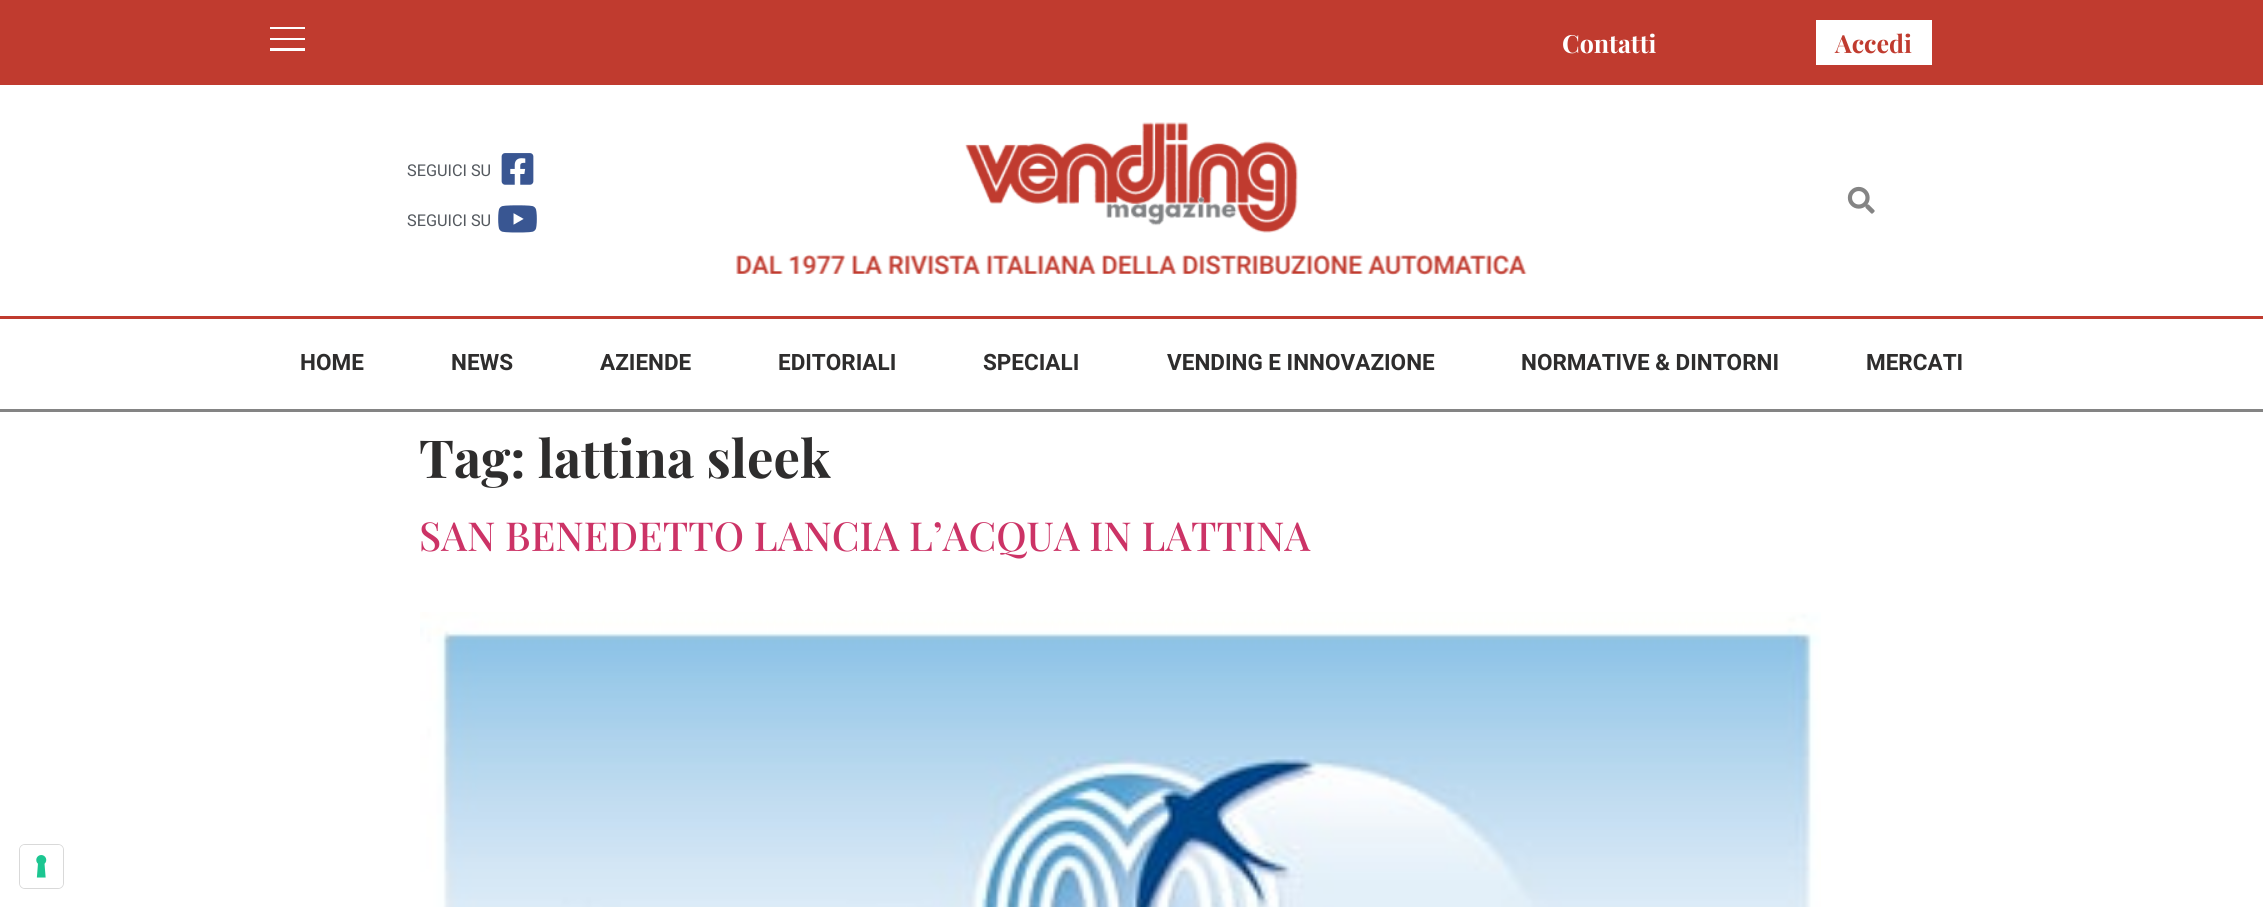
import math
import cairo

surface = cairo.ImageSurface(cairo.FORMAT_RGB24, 2263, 907)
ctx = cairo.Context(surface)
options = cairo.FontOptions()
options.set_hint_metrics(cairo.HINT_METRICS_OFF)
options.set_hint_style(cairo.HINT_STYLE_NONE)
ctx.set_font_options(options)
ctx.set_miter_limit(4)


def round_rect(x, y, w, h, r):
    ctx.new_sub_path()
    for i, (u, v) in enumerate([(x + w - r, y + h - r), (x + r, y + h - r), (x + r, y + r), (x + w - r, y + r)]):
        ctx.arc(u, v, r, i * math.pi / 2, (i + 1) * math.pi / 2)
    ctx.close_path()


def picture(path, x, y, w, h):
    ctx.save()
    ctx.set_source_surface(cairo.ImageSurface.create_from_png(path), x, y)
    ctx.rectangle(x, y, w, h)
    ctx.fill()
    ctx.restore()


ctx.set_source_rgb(1, 1, 1)
ctx.paint()
ctx.set_source_rgb(0.753, 0.231, 0.184)
ctx.rectangle(0, 0, 2263, 85)
ctx.fill()
ctx.set_source_rgb(1, 1, 1)
ctx.rectangle(270, 27, 35, 2)
ctx.fill()
ctx.rectangle(270, 48, 35, 3)
ctx.fill()
ctx.rectangle(270, 38, 35, 2)
ctx.fill()
ctx.select_font_face("Playfair Display", cairo.FONT_SLANT_NORMAL, cairo.FONT_WEIGHT_BOLD)
ctx.set_font_size(25)
ctx.move_to(1562, 53)
ctx.show_text("Contatti")
ctx.rectangle(1816, 20, 116, 45)
ctx.fill()
ctx.set_source_rgb(0.753, 0.231, 0.184)
ctx.move_to(1835, 53)
ctx.show_text("Accedi")
ctx.rectangle(0, 316, 2263, 3)
ctx.fill()
ctx.select_font_face("Heebo")
ctx.set_font_size(16.25)
ctx.set_source_rgb(0.329, 0.349, 0.373)
ctx.move_to(407, 176)
ctx.show_text("SEGUICI SU")
picture("img1.png", 501, 153, 33, 32)
ctx.move_to(407, 226)
ctx.show_text("SEGUICI SU")
picture("img2.png", 498, 205, 39, 28)
picture("img3.png", 736, 122, 791, 153)
picture("img4.png", 1847, 186, 28, 28)
ctx.set_source_rgb(0.518, 0.518, 0.518)
ctx.rectangle(0, 409, 2263, 3)
ctx.fill()
ctx.select_font_face("Heebo", cairo.FONT_SLANT_NORMAL, cairo.FONT_WEIGHT_BOLD)
ctx.set_font_size(22.5)
ctx.set_source_rgb(0.18, 0.176, 0.176)
ctx.move_to(300, 370)
ctx.show_text("HOME")
ctx.move_to(451, 370)
ctx.show_text("NEWS")
ctx.move_to(600, 370)
ctx.show_text("AZIENDE")
ctx.move_to(778, 370)
ctx.show_text("EDITORIALI")
ctx.move_to(983, 370)
ctx.show_text("SPECIALI")
ctx.move_to(1167, 370)
ctx.show_text("VENDING E INNOVAZIONE")
ctx.move_to(1521, 370)
ctx.show_text("NORMATIVE & DINTORNI")
ctx.move_to(1866, 370)
ctx.show_text("MERCATI")
ctx.select_font_face("Playfair Display", cairo.FONT_SLANT_NORMAL, cairo.FONT_WEIGHT_BOLD)
ctx.set_font_size(52.5)
ctx.move_to(419, 478)
ctx.show_text("Tag: lattina sleek")
ctx.select_font_face("Playfair Display Medium")
ctx.set_font_size(40)
ctx.set_source_rgb(0.8, 0.2, 0.4)
ctx.move_to(419, 551)
ctx.show_text("SAN BENEDETTO LANCIA L’ACQUA IN LATTINA")
picture("img5.png", 420, 612, 1401, 295)
round_rect(19.5, 844.5, 44, 44, 5.5)
ctx.set_source_rgb(0.851, 0.851, 0.851)
ctx.set_line_width(1)
ctx.stroke()
ctx.set_source_rgb(1, 1, 1)
round_rect(20, 845, 43, 43, 5)
ctx.fill()
picture("img6.png", 36, 855, 11, 23)
surface.write_to_png("page.png")
